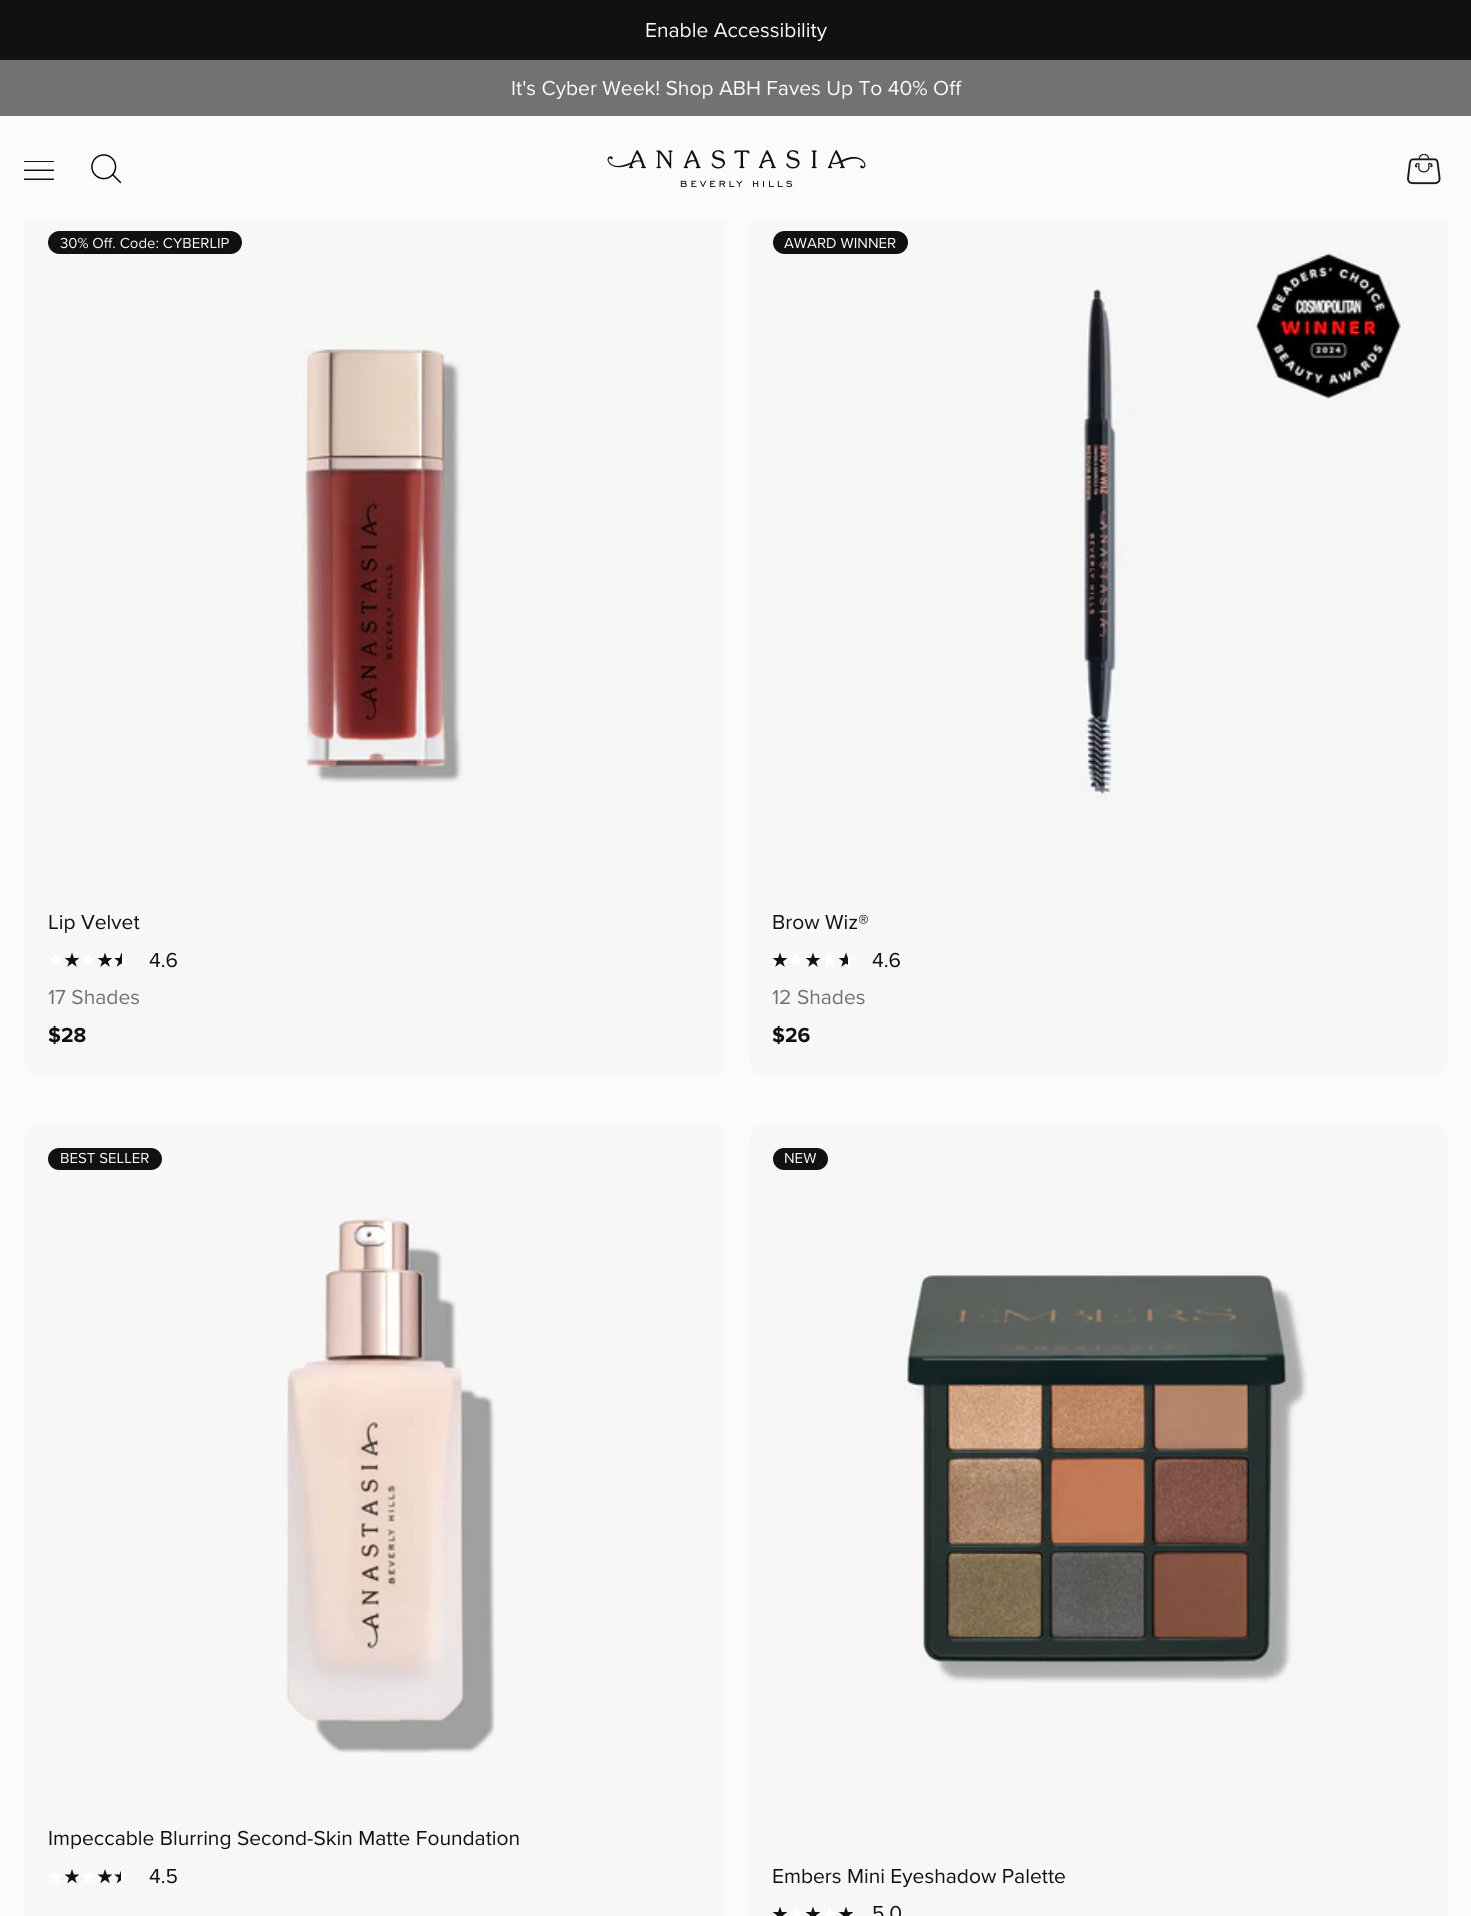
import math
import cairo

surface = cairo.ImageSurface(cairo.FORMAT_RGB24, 1471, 1916)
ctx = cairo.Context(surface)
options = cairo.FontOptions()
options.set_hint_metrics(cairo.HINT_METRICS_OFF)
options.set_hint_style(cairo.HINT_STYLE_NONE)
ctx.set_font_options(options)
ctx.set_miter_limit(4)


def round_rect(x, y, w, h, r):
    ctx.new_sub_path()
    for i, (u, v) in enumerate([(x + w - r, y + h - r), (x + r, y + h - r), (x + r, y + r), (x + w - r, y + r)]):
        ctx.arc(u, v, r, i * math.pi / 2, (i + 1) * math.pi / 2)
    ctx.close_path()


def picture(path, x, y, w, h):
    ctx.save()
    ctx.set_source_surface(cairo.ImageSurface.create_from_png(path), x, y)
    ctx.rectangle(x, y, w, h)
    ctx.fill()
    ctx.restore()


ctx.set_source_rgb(0.984, 0.984, 0.984)
ctx.paint()
ctx.set_source_rgb(0.067, 0.067, 0.067)
ctx.rectangle(0, 0, 1471, 60)
ctx.fill()
ctx.select_font_face("Proxima Nova")
ctx.set_font_size(21)
ctx.set_source_rgb(0.984, 0.984, 0.984)
ctx.move_to(645, 37)
ctx.show_text("Enable Accessibility")
ctx.set_source_rgb(0.965, 0.965, 0.961)
round_rect(24, 207, 701, 869, 15)
ctx.fill()
round_rect(749, 207, 699, 869, 15)
ctx.fill()
ctx.set_source_rgb(0.984, 0.984, 0.984)
ctx.rectangle(24, 207, 1424, 14)
ctx.fill()
ctx.set_source_rgb(0.447, 0.447, 0.447)
ctx.rectangle(0, 60, 1471, 56)
ctx.fill()
ctx.set_source_rgb(0.984, 0.984, 0.984)
ctx.move_to(511, 95)
ctx.show_text("It's Cyber Week! Shop ABH Faves Up To 40% Off")
picture("img1.png", 24, 161, 30, 19)
picture("img2.png", 91, 154, 31, 30)
picture("img3.png", 607, 150, 259, 38)
picture("img4.png", 1407, 154, 34, 31)
ctx.set_source_rgb(0.067, 0.067, 0.067)
round_rect(48, 231, 194, 23, 11.5)
ctx.fill()
ctx.set_font_size(15)
ctx.set_source_rgb(0.984, 0.984, 0.984)
ctx.move_to(60, 248)
ctx.show_text("30% Off. Code: CYBERLIP")
picture("img5.png", 302, 348, 161, 435)
ctx.set_font_size(21)
ctx.set_source_rgb(0.067, 0.067, 0.067)
ctx.move_to(48, 929)
ctx.show_text("Lip Velvet")
picture("img6.png", 49, 953, 13, 13)
picture("img7.png", 64, 952, 15, 15)
picture("img6.png", 82, 953, 13, 13)
picture("img7.png", 97, 952, 15, 15)
picture("img8.png", 114, 952, 14, 15)
ctx.move_to(149, 967)
ctx.show_text("4.6")
ctx.set_source_rgb(0.447, 0.447, 0.447)
ctx.move_to(48, 1004)
ctx.show_text("17 Shades")
ctx.select_font_face("Proxima Nova", cairo.FONT_SLANT_NORMAL, cairo.FONT_WEIGHT_BOLD)
ctx.set_source_rgb(0.067, 0.067, 0.067)
ctx.move_to(48, 1042)
ctx.show_text("$28")
round_rect(773, 231, 135, 23, 11.5)
ctx.fill()
ctx.select_font_face("Proxima Nova")
ctx.set_font_size(15)
ctx.set_source_rgb(0.984, 0.984, 0.984)
ctx.move_to(784, 248)
ctx.show_text("AWARD WINNER")
picture("img9.png", 1080, 251, 324, 547)
ctx.set_font_size(21)
ctx.set_source_rgb(0.067, 0.067, 0.067)
ctx.move_to(772, 929)
ctx.show_text("Brow Wiz®")
picture("img7.png", 772, 952, 15, 15)
picture("img6.png", 790, 953, 13, 13)
picture("img7.png", 805, 952, 15, 15)
picture("img6.png", 823, 953, 13, 13)
picture("img10.png", 838, 952, 15, 15)
ctx.move_to(872, 967)
ctx.show_text("4.6")
ctx.set_source_rgb(0.447, 0.447, 0.447)
ctx.move_to(772, 1004)
ctx.show_text("12 Shades")
ctx.select_font_face("Proxima Nova", cairo.FONT_SLANT_NORMAL, cairo.FONT_WEIGHT_BOLD)
ctx.set_source_rgb(0.067, 0.067, 0.067)
ctx.move_to(772, 1042)
ctx.show_text("$26")
ctx.set_source_rgb(0.965, 0.965, 0.961)
round_rect(24, 1124, 701, 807, 15)
ctx.fill()
ctx.set_source_rgb(0.067, 0.067, 0.067)
round_rect(48, 1148, 114, 22, 11)
ctx.fill()
ctx.select_font_face("Proxima Nova")
ctx.set_font_size(15)
ctx.set_source_rgb(0.984, 0.984, 0.984)
ctx.move_to(60, 1163)
ctx.show_text("BEST SELLER")
picture("img11.png", 284, 1214, 211, 539)
ctx.set_font_size(21)
ctx.set_source_rgb(0.067, 0.067, 0.067)
ctx.move_to(48, 1845)
ctx.show_text("Impeccable Blurring Second-Skin Matte Foundation")
picture("img12.png", 49, 1870, 13, 13)
picture("img13.png", 64, 1869, 15, 15)
picture("img12.png", 82, 1870, 13, 13)
picture("img13.png", 97, 1869, 15, 15)
picture("img14.png", 114, 1870, 14, 14)
ctx.move_to(149, 1883)
ctx.show_text("4.5")
ctx.set_source_rgb(0.965, 0.965, 0.961)
round_rect(749, 1124, 699, 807, 15)
ctx.fill()
ctx.set_source_rgb(0.067, 0.067, 0.067)
round_rect(773, 1148, 55, 22, 11)
ctx.fill()
ctx.set_font_size(15)
ctx.set_source_rgb(0.984, 0.984, 0.984)
ctx.move_to(784, 1163)
ctx.show_text("NEW")
picture("img15.png", 903, 1272, 405, 411)
ctx.set_font_size(21)
ctx.set_source_rgb(0.067, 0.067, 0.067)
ctx.move_to(772, 1883)
ctx.show_text("Embers Mini Eyeshadow Palette")
picture("img16.png", 772, 1906, 15, 10)
picture("img17.png", 790, 1907, 13, 9)
picture("img16.png", 805, 1906, 15, 10)
picture("img17.png", 823, 1907, 13, 9)
picture("img16.png", 838, 1906, 15, 10)
ctx.move_to(872, 1920)
ctx.show_text("5.0")
surface.write_to_png("page.png")
